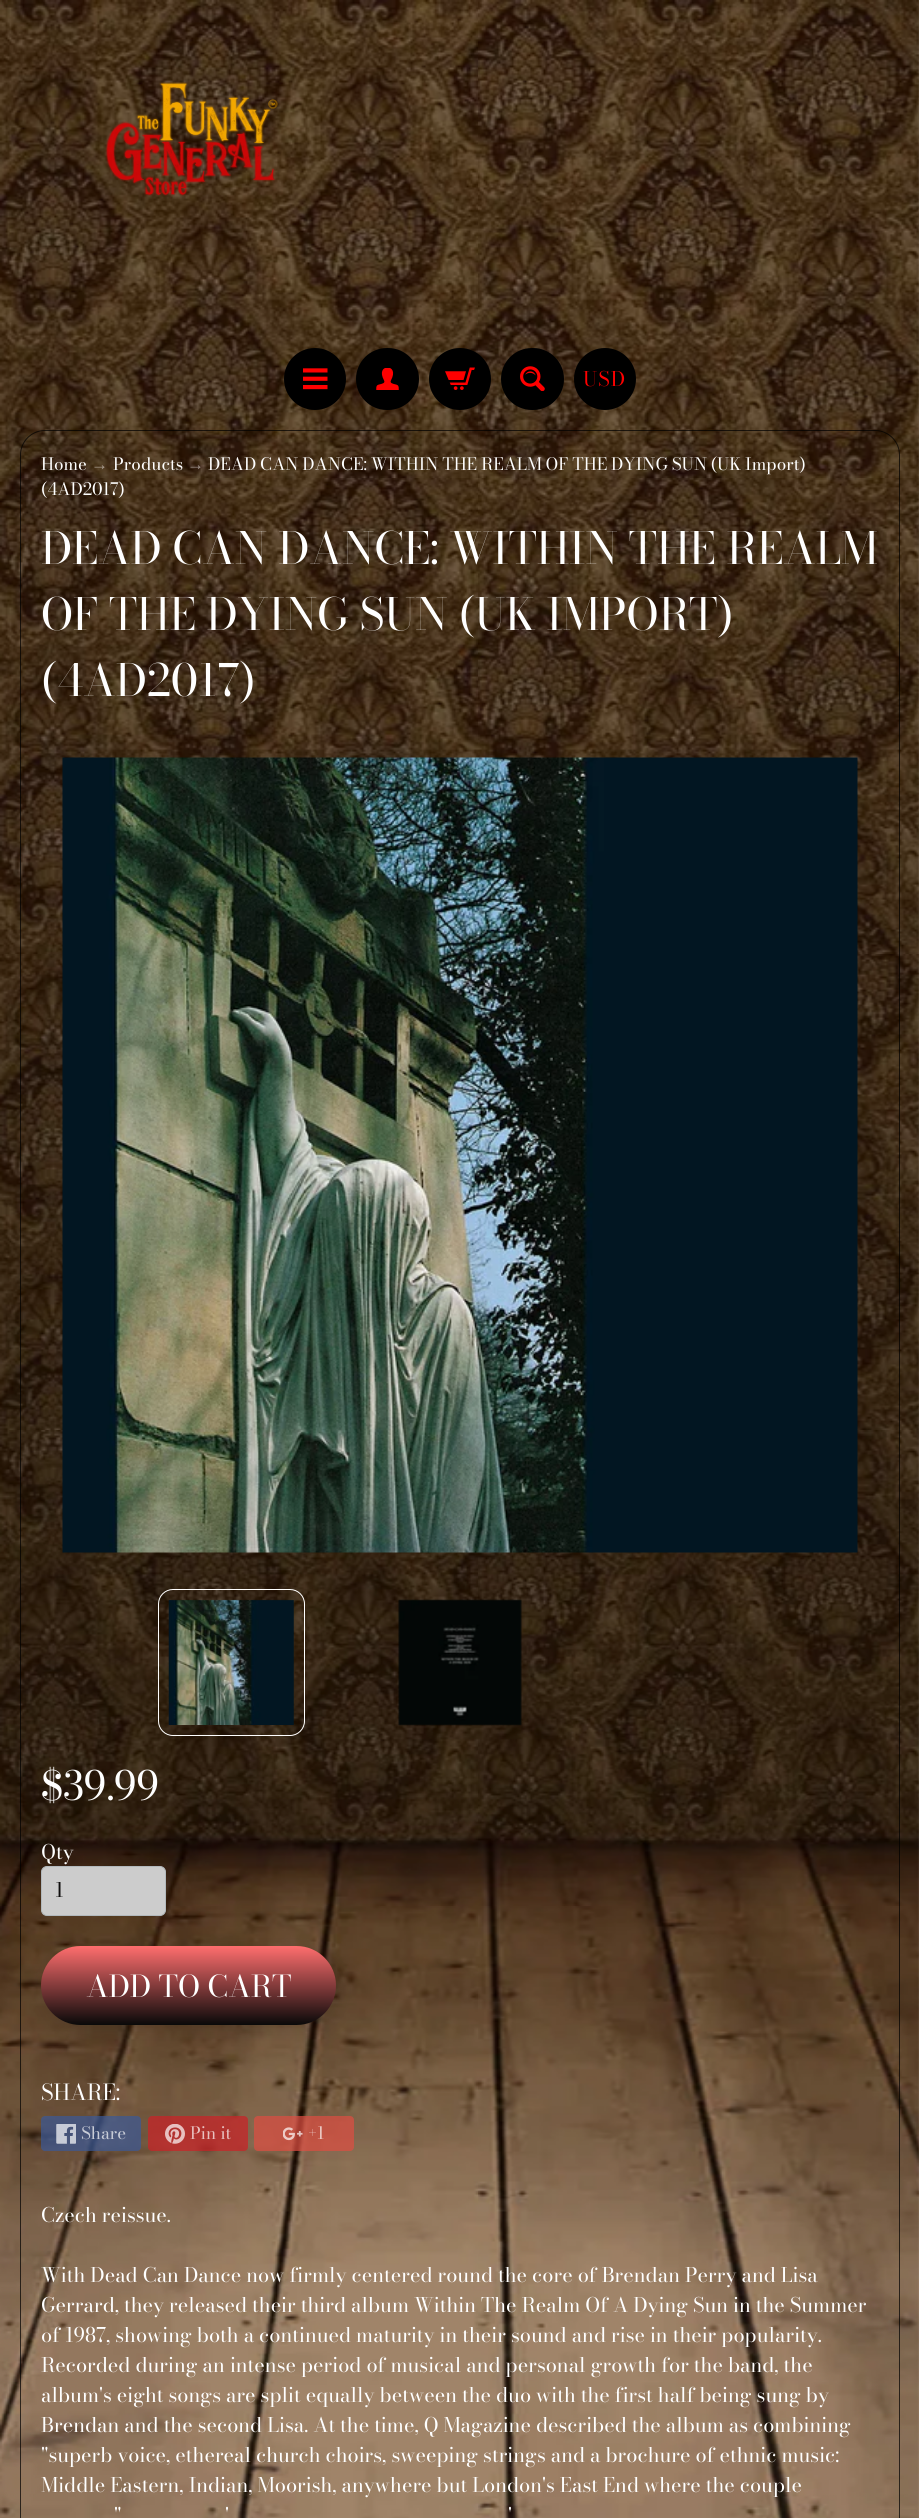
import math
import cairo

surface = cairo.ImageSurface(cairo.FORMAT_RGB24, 919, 2518)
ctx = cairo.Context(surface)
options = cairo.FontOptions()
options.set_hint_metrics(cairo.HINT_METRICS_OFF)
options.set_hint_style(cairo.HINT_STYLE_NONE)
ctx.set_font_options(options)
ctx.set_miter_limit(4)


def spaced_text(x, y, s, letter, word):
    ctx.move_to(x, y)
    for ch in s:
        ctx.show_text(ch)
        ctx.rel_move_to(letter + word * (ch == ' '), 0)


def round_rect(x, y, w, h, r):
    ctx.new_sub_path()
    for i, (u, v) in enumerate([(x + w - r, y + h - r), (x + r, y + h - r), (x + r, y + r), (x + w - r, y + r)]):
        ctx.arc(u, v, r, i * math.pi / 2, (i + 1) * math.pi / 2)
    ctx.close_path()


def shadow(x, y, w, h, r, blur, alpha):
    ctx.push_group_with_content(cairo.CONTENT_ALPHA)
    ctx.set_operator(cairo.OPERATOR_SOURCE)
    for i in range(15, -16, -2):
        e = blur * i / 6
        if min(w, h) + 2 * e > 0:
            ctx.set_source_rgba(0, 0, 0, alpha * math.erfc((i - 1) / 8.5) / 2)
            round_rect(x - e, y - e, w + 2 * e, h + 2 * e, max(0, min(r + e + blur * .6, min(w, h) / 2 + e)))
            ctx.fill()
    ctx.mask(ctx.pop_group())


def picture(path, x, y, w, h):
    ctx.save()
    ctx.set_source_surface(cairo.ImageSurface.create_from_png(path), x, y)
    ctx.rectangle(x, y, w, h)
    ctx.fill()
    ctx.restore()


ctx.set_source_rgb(1, 1, 1)
ctx.paint()
picture("img1.png", 0, 0, 919, 2518)
picture("img2.png", 105, 82, 173, 114)
ctx.set_source_rgb(0, 0, 0)
ctx.arc(315, 379, 29, 0, 2 * math.pi)
ctx.fill_preserve()
ctx.set_line_width(4)
ctx.stroke()
picture("img3.png", 303, 368, 25, 22)
round_rect(358, 350, 59, 58, 29)
ctx.fill_preserve()
ctx.stroke()
picture("img4.png", 376, 368, 23, 22)
ctx.arc(460, 379, 29, 0, 2 * math.pi)
ctx.fill_preserve()
ctx.stroke()
picture("img5.png", 445, 367, 30, 23)
round_rect(503, 350, 59, 58, 29)
ctx.fill_preserve()
ctx.stroke()
picture("img6.png", 520, 366, 25, 25)
ctx.arc(605, 379, 29, 0, 2 * math.pi)
ctx.fill_preserve()
ctx.stroke()
ctx.select_font_face("Bodoni Moda")
ctx.set_font_size(20)
ctx.set_source_rgb(1, 0, 0)
spaced_text(583, 386, "USD", 1, 0)
round_rect(20.5, 430.5, 879, 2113, 24.5)
ctx.set_source_rgba(0, 0, 0, 0.7)
ctx.set_line_width(1)
ctx.stroke()
ctx.select_font_face("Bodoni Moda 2")
ctx.set_font_size(17)
ctx.set_source_rgb(1, 1, 1)
ctx.move_to(41, 470)
ctx.show_text("Home")
ctx.select_font_face("Liberation Serif")
ctx.set_source_rgb(0.655, 0.608, 0.557)
ctx.move_to(91, 470)
ctx.show_text("→")
ctx.select_font_face("Bodoni Moda 2")
ctx.set_source_rgb(1, 1, 1)
ctx.move_to(113, 470)
ctx.show_text("Products")
ctx.select_font_face("Liberation Serif")
ctx.set_source_rgb(0.616, 0.569, 0.537)
ctx.move_to(187, 470)
ctx.show_text("→")
ctx.select_font_face("Bodoni Moda 2")
ctx.set_source_rgb(1, 1, 1)
spaced_text(208, 470, "DEAD CAN DANCE: WITHIN THE REALM OF THE DYING SUN (UK Import)", 0, -0.5)
ctx.move_to(41, 495)
ctx.show_text("(4AD2017)")
ctx.select_font_face("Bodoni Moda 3")
ctx.set_font_size(44)
ctx.move_to(41, 564)
ctx.show_text("DEAD CAN DANCE: WITHIN THE REALM")
ctx.move_to(41, 630)
ctx.show_text("OF THE DYING SUN (UK IMPORT)")
ctx.move_to(41, 696)
ctx.show_text("(4AD2017)")
picture("img7.png", 62, 757, 796, 796)
round_rect(158.5, 1589.5, 146, 146, 14.5)
ctx.stroke()
picture("img8.png", 168, 1599, 126, 126)
picture("img9.png", 398, 1599, 124, 127)
ctx.select_font_face("Bodoni Moda 2")
ctx.set_font_size(40)
ctx.move_to(41, 1800)
ctx.show_text("$39.99")
ctx.set_font_size(20)
ctx.move_to(41, 1859)
ctx.show_text("Qty")
ctx.set_source_rgb(0.8, 0.8, 0.8)
round_rect(41.5, 1866.5, 124, 49, 5.5)
ctx.fill_preserve()
ctx.set_source_rgb(0.698, 0.725, 0.741)
ctx.stroke()
ctx.set_source_rgb(0.059, 0.055, 0.055)
ctx.move_to(55, 1897)
ctx.show_text("1")
ctx.set_source_rgb(0, 0, 0)
shadow(45, 1950, 295, 79, 39.5, 7.5, 0.1)
gradient = cairo.LinearGradient(189, 1946, 189, 2025)
gradient.add_color_stop_rgba(0, 1, 0.431, 0.431, 1)
gradient.add_color_stop_rgba(1, 0.035, 0.035, 0.035, 1)
ctx.set_source(gradient)
round_rect(41, 1946, 295, 79, 39.5)
ctx.fill()
ctx.select_font_face("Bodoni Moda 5")
ctx.set_font_size(30)
ctx.set_source_rgb(1, 1, 1)
ctx.move_to(86, 1997)
ctx.show_text("ADD TO CART")
ctx.select_font_face("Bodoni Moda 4")
ctx.set_font_size(22)
ctx.move_to(41, 2100)
ctx.show_text("SHARE:")
ctx.set_source_rgba(0.231, 0.349, 0.596, 0.7)
round_rect(41, 2116, 100, 35, 4)
ctx.fill()
picture("img10.png", 56, 2124, 20, 20)
ctx.select_font_face("Bodoni Moda 2")
ctx.set_font_size(17)
ctx.set_source_rgb(0.784, 0.8, 0.843)
ctx.move_to(81, 2139)
ctx.show_text("Share")
ctx.set_source_rgba(0.8, 0.129, 0.153, 0.7)
round_rect(148, 2116, 100, 35, 4)
ctx.fill()
picture("img11.png", 165, 2124, 20, 20)
ctx.set_source_rgb(0.91, 0.761, 0.757)
ctx.move_to(190, 2139)
ctx.show_text("Pin it")
ctx.set_source_rgba(0.871, 0.306, 0.259, 0.7)
round_rect(254, 2116, 100, 35, 4)
ctx.fill()
picture("img12.png", 283, 2127, 20, 14)
ctx.set_source_rgb(0.925, 0.8, 0.78)
ctx.move_to(308, 2139)
ctx.show_text("+1")
ctx.select_font_face("Bodoni Moda")
ctx.set_font_size(20)
ctx.set_source_rgb(1, 1, 1)
ctx.move_to(41, 2222)
ctx.show_text("Czech reissue.")
ctx.move_to(41, 2282)
ctx.show_text("With Dead Can Dance now firmly centered round the core of Brendan Perry and Lisa")
ctx.move_to(41, 2312)
ctx.show_text("Gerrard, they released their third album Within The Realm Of A Dying Sun in the Summer")
ctx.move_to(41, 2342)
ctx.show_text("of 1987, showing both a continued maturity in their sound and rise in their popularity.")
ctx.move_to(41, 2372)
ctx.show_text("Recorded during an intense period of musical and personal growth for the band, the")
ctx.move_to(41, 2402)
ctx.show_text("album's eight songs are split equally between the duo with the first half being sung by")
ctx.move_to(41, 2432)
ctx.show_text("Brendan and the second Lisa. At the time, Q Magazine described the album as combining")
ctx.move_to(41, 2462)
ctx.show_text("\"superb voice, ethereal church choirs, sweeping strings and a brochure of ethnic music:")
ctx.move_to(41, 2492)
ctx.show_text("Middle Eastern, Indian, Moorish, anywhere but London's East End where the couple")
ctx.move_to(114, 2522)
ctx.show_text("\"")
ctx.move_to(225, 2522)
ctx.show_text("'")
ctx.move_to(508, 2522)
ctx.show_text("'")
surface.write_to_png("page.png")
